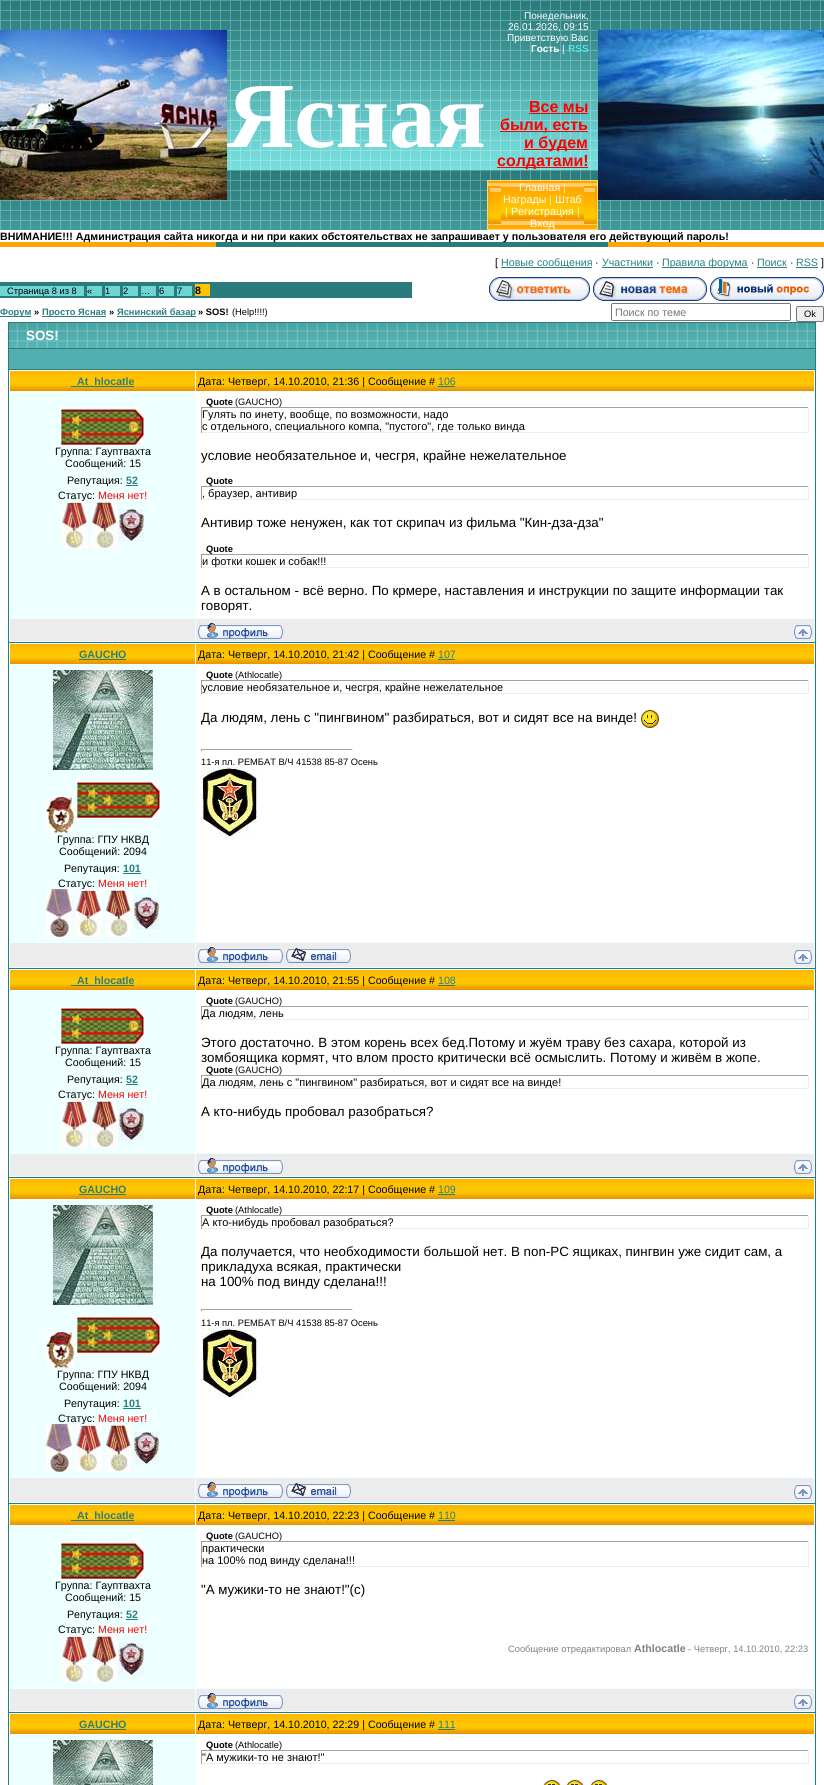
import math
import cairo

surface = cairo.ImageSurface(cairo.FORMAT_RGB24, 824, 1785)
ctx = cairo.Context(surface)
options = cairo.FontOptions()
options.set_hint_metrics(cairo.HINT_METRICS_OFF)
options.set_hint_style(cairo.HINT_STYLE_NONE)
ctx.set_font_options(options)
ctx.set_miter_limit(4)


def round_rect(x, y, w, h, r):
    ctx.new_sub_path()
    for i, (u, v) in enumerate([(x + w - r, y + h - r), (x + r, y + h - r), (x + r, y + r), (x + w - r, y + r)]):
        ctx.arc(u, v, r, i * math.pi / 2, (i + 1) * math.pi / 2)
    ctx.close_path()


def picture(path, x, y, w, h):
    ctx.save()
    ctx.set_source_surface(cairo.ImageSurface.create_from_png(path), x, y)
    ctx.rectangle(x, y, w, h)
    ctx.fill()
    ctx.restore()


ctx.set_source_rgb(1, 1, 1)
ctx.paint()
picture("img1.png", 0, 0, 824, 230)
picture("img2.png", 0, 30, 227, 170)
ctx.select_font_face("Liberation Serif", cairo.FONT_SLANT_NORMAL, cairo.FONT_WEIGHT_BOLD)
ctx.set_font_size(93)
ctx.set_source_rgb(1, 1, 1)
ctx.move_to(227, 147)
ctx.show_text("Ясная")
ctx.select_font_face("Liberation Sans")
ctx.set_font_size(10)
ctx.move_to(524, 19)
ctx.show_text("Понедельник,")
ctx.move_to(508, 30)
ctx.show_text("26.01.2026, 09:15")
ctx.move_to(507, 41)
ctx.show_text("Приветствую Вас")
ctx.select_font_face("Liberation Sans", cairo.FONT_SLANT_NORMAL, cairo.FONT_WEIGHT_BOLD)
ctx.move_to(531, 52)
ctx.show_text("Гость")
ctx.select_font_face("Liberation Sans")
ctx.move_to(562, 52)
ctx.show_text("|")
ctx.set_source_rgb(0.341, 1, 1)
ctx.move_to(568, 52)
ctx.show_text("RSS")
ctx.select_font_face("Liberation Sans", cairo.FONT_SLANT_NORMAL, cairo.FONT_WEIGHT_BOLD)
ctx.set_font_size(16)
ctx.set_source_rgb(1, 0, 0)
ctx.move_to(529, 112)
ctx.show_text("Все мы")
ctx.rectangle(529, 113, 59, 1)
ctx.fill()
ctx.rectangle(500, 131, 88, 1)
ctx.fill()
ctx.move_to(500, 130)
ctx.show_text("были, есть")
ctx.rectangle(524, 149, 64, 1)
ctx.fill()
ctx.move_to(524, 148)
ctx.show_text("и будем")
ctx.rectangle(497, 167, 91, 1)
ctx.fill()
ctx.move_to(497, 166)
ctx.show_text("солдатами!")
picture("img3.png", 598, 30, 226, 170)
picture("img4.png", 488, 181, 109, 48)
ctx.rectangle(487.5, 180.5, 110, 49)
ctx.set_source_rgb(1, 0.863, 0.345)
ctx.set_line_width(1)
ctx.stroke()
picture("img5.png", 488, 186, 13, 38)
ctx.select_font_face("Liberation Sans")
ctx.set_font_size(10.67)
ctx.set_source_rgb(1, 1, 1)
ctx.move_to(519, 191)
ctx.show_text("Главная")
ctx.set_source_rgb(1, 0.949, 0.714)
ctx.move_to(563, 191)
ctx.show_text("|")
ctx.set_source_rgb(1, 1, 1)
ctx.move_to(503, 203)
ctx.show_text("Награды")
ctx.set_source_rgb(1, 0.949, 0.714)
ctx.move_to(549, 203)
ctx.show_text("|")
ctx.set_source_rgb(1, 1, 1)
ctx.move_to(555, 203)
ctx.show_text("Штаб")
ctx.set_source_rgb(1, 0.949, 0.714)
ctx.move_to(505, 215)
ctx.show_text("|")
ctx.set_source_rgb(1, 1, 1)
ctx.move_to(511, 215)
ctx.show_text("Регистрация")
ctx.set_source_rgb(1, 0.949, 0.714)
ctx.move_to(577, 215)
ctx.show_text("|")
ctx.set_source_rgb(1, 1, 1)
ctx.move_to(530, 227)
ctx.show_text("Вход")
picture("img6.png", 584, 186, 13, 38)
ctx.set_source_rgb(0.165, 0.486, 0.486)
ctx.rectangle(216, 242, 392, 5)
ctx.fill()
ctx.select_font_face("Liberation Sans", cairo.FONT_SLANT_NORMAL, cairo.FONT_WEIGHT_BOLD)
ctx.set_source_rgb(0, 0, 0)
ctx.move_to(0, 240)
ctx.show_text("ВНИМАНИЕ!!! Администрация сайта никогда и ни при каких обстоятельствах не запрашивает у пользователя его действующий пароль!")
ctx.set_source_rgb(1, 0.647, 0)
ctx.rectangle(0, 242, 216, 5)
ctx.fill()
ctx.rectangle(608, 242, 216, 5)
ctx.fill()
ctx.select_font_face("Liberation Sans")
ctx.set_source_rgb(0, 0, 0)
ctx.move_to(495, 266)
ctx.show_text("[")
ctx.set_source_rgb(0.169, 0.494, 0.494)
ctx.rectangle(501, 267, 91, 1)
ctx.fill()
ctx.move_to(501, 266)
ctx.show_text("Новые сообщения")
ctx.set_source_rgb(0, 0, 0)
ctx.move_to(595, 266)
ctx.show_text("·")
ctx.set_source_rgb(0.169, 0.494, 0.494)
ctx.move_to(602, 266)
ctx.show_text("Участники")
ctx.rectangle(602, 267, 51, 1)
ctx.fill()
ctx.set_source_rgb(0, 0, 0)
ctx.move_to(656, 266)
ctx.show_text("·")
ctx.set_source_rgb(0.169, 0.494, 0.494)
ctx.rectangle(662, 267, 86, 1)
ctx.fill()
ctx.move_to(662, 266)
ctx.show_text("Правила форума")
ctx.set_source_rgb(0, 0, 0)
ctx.move_to(751, 266)
ctx.show_text("·")
ctx.set_source_rgb(0.169, 0.494, 0.494)
ctx.move_to(757, 266)
ctx.show_text("Поиск")
ctx.rectangle(757, 267, 30, 1)
ctx.fill()
ctx.set_source_rgb(0, 0, 0)
ctx.move_to(790, 266)
ctx.show_text("·")
ctx.set_source_rgb(0.169, 0.494, 0.494)
ctx.move_to(796, 266)
ctx.show_text("RSS")
ctx.rectangle(796, 267, 22, 1)
ctx.fill()
ctx.set_source_rgb(0, 0, 0)
ctx.move_to(821, 266)
ctx.show_text("]")
ctx.set_source_rgb(0.165, 0.486, 0.486)
ctx.rectangle(0, 282, 412, 16)
ctx.fill()
ctx.set_source_rgb(0.435, 0.831, 0.831)
ctx.rectangle(0, 286, 84, 10)
ctx.fill()
ctx.set_font_size(9.3)
ctx.set_source_rgb(0, 0, 0)
ctx.move_to(7, 294)
ctx.show_text("Страница 8 из 8")
ctx.set_source_rgb(0.435, 0.831, 0.831)
ctx.rectangle(87, 286, 15, 10)
ctx.fill()
ctx.set_source_rgb(0, 0, 0)
ctx.move_to(87, 294)
ctx.show_text("«")
ctx.set_source_rgb(0.435, 0.831, 0.831)
ctx.rectangle(105, 286, 15, 10)
ctx.fill()
ctx.set_source_rgb(0, 0, 0)
ctx.move_to(105, 294)
ctx.show_text("1")
ctx.set_source_rgb(0.435, 0.831, 0.831)
ctx.rectangle(123, 286, 15, 10)
ctx.fill()
ctx.set_source_rgb(0, 0, 0)
ctx.move_to(123, 294)
ctx.show_text("2")
ctx.set_source_rgb(0.435, 0.831, 0.831)
ctx.rectangle(141, 286, 15, 10)
ctx.fill()
ctx.set_source_rgb(0, 0, 0)
ctx.move_to(141, 294)
ctx.show_text("…")
ctx.set_source_rgb(0.435, 0.831, 0.831)
ctx.rectangle(159, 286, 15, 10)
ctx.fill()
ctx.set_source_rgb(0, 0, 0)
ctx.move_to(159, 294)
ctx.show_text("6")
ctx.set_source_rgb(0.435, 0.831, 0.831)
ctx.rectangle(177, 286, 15, 10)
ctx.fill()
ctx.set_source_rgb(0, 0, 0)
ctx.move_to(177, 294)
ctx.show_text("7")
ctx.set_source_rgb(1, 0.765, 0)
ctx.rectangle(195, 284, 15, 12)
ctx.fill()
ctx.select_font_face("Liberation Sans", cairo.FONT_SLANT_NORMAL, cairo.FONT_WEIGHT_BOLD)
ctx.set_font_size(10.67)
ctx.set_source_rgb(0, 0, 0)
ctx.move_to(195, 294)
ctx.show_text("8")
picture("img7.png", 489, 277, 101, 24)
picture("img8.png", 593, 277, 114, 24)
picture("img9.png", 710, 277, 114, 24)
ctx.set_source_rgb(0.169, 0.494, 0.494)
ctx.rectangle(0, 316, 31, 1)
ctx.fill()
ctx.set_font_size(9.3)
ctx.move_to(0, 315)
ctx.show_text("Форум")
ctx.set_source_rgb(0, 0, 0)
ctx.move_to(34, 315)
ctx.show_text("»")
ctx.set_source_rgb(0.169, 0.494, 0.494)
ctx.rectangle(42, 316, 64, 1)
ctx.fill()
ctx.move_to(42, 315)
ctx.show_text("Просто Ясная")
ctx.set_source_rgb(0, 0, 0)
ctx.move_to(109, 315)
ctx.show_text("»")
ctx.set_source_rgb(0.169, 0.494, 0.494)
ctx.rectangle(117, 316, 79, 1)
ctx.fill()
ctx.move_to(117, 315)
ctx.show_text("Яснинский базар")
ctx.set_source_rgb(0, 0, 0)
ctx.move_to(198, 315)
ctx.show_text("» SOS!")
ctx.select_font_face("Liberation Sans")
ctx.move_to(232, 315)
ctx.show_text("(Help!!!!)")
round_rect(611.5, 303.5, 179, 17, 1.5)
ctx.set_source_rgb(0.463, 0.463, 0.463)
ctx.stroke()
ctx.set_font_size(10.67)
ctx.set_source_rgb(0.459, 0.459, 0.459)
ctx.move_to(615, 316)
ctx.show_text("Поиск по теме")
ctx.set_source_rgb(0.937, 0.937, 0.937)
round_rect(796.5, 306.5, 27, 15, 1.5)
ctx.fill_preserve()
ctx.set_source_rgb(0.463, 0.463, 0.463)
ctx.stroke()
ctx.set_font_size(9.3)
ctx.set_source_rgb(0, 0, 0)
ctx.move_to(804, 317)
ctx.show_text("Ok")
ctx.set_source_rgb(0.165, 0.486, 0.486)
ctx.rectangle(8, 322, 808, 1463)
ctx.fill()
picture("img10.png", 9, 323, 806, 25)
ctx.select_font_face("Liberation Sans", cairo.FONT_SLANT_NORMAL, cairo.FONT_WEIGHT_BOLD)
ctx.set_font_size(13.35)
ctx.set_source_rgb(1, 1, 1)
ctx.move_to(26, 340)
ctx.show_text("SOS!")
ctx.set_source_rgb(0.322, 0.686, 0.686)
ctx.rectangle(9, 349, 806, 20)
ctx.fill()
ctx.set_source_rgb(0.929, 1, 1)
ctx.rectangle(9, 370, 806, 272)
ctx.fill()
ctx.set_source_rgb(1, 0.722, 0)
ctx.rectangle(10, 371, 185, 3)
ctx.fill()
picture("img11.png", 10, 374, 185, 17)
ctx.set_source_rgb(0.169, 0.494, 0.494)
ctx.rectangle(71, 386, 63, 1)
ctx.fill()
ctx.set_font_size(10.67)
ctx.move_to(77, 385)
ctx.show_text("At_hlocatle")
ctx.set_source_rgb(1, 0.722, 0)
ctx.rectangle(196, 371, 618, 3)
ctx.fill()
picture("img12.png", 196, 374, 618, 17)
ctx.select_font_face("Liberation Sans")
ctx.set_source_rgb(0, 0, 0)
ctx.move_to(198, 385)
ctx.show_text("Дата: Четверг, 14.10.2010, 21:36 | Сообщение #")
ctx.set_source_rgb(0.169, 0.494, 0.494)
ctx.move_to(438, 385)
ctx.show_text("106")
ctx.rectangle(438, 386, 17, 1)
ctx.fill()
picture("img13.png", 61, 409, 83, 36)
ctx.set_source_rgb(0, 0, 0)
ctx.move_to(55, 455)
ctx.show_text("Группа: Гауптвахта")
ctx.move_to(65, 467)
ctx.show_text("Сообщений: 15")
ctx.move_to(67, 484)
ctx.show_text("Репутация:")
ctx.select_font_face("Liberation Sans", cairo.FONT_SLANT_NORMAL, cairo.FONT_WEIGHT_BOLD)
ctx.set_source_rgb(0.169, 0.494, 0.494)
ctx.move_to(126, 484)
ctx.show_text("52")
ctx.rectangle(126, 485, 12, 1)
ctx.fill()
ctx.select_font_face("Liberation Sans")
ctx.set_source_rgb(0, 0, 0)
ctx.move_to(58, 499)
ctx.show_text("Статус:")
ctx.set_source_rgb(1, 0, 0)
ctx.move_to(98, 499)
ctx.show_text("Меня нет!")
picture("img14.png", 61, 501, 27, 48)
picture("img15.png", 91, 501, 26, 48)
picture("img16.png", 119, 509, 25, 32)
ctx.set_source_rgb(1, 1, 1)
ctx.rectangle(196, 392, 618, 226)
ctx.fill()
ctx.select_font_face("Liberation Sans", cairo.FONT_SLANT_NORMAL, cairo.FONT_WEIGHT_BOLD)
ctx.set_font_size(9.3)
ctx.set_source_rgb(0, 0, 0)
ctx.move_to(206, 405)
ctx.show_text("Quote")
ctx.select_font_face("Liberation Sans")
ctx.move_to(235, 405)
ctx.show_text("(GAUCHO)")
ctx.set_source_rgb(0.624, 0.624, 0.624)
ctx.rectangle(201, 407, 608, 1)
ctx.fill()
ctx.set_source_rgb(0.933, 0.933, 0.933)
ctx.rectangle(808, 407, 1, 26)
ctx.fill()
ctx.rectangle(201, 432, 608, 1)
ctx.fill()
ctx.set_source_rgb(0.624, 0.624, 0.624)
ctx.rectangle(201, 407, 1, 26)
ctx.fill()
ctx.set_font_size(11)
ctx.set_source_rgb(0, 0, 0)
ctx.move_to(202, 418)
ctx.show_text("Гулять по инету, вообще, по возможности, надо")
ctx.save()
ctx.rectangle(202, 408, 606, 24)
ctx.clip()
ctx.move_to(202, 430)
ctx.show_text("с отдельного, специального компа, \"пустого\", где только винда")
ctx.restore()
ctx.set_font_size(13.35)
ctx.move_to(201, 460)
ctx.show_text("условие необязательное и, чесгря, крайне нежелательное")
ctx.select_font_face("Liberation Sans", cairo.FONT_SLANT_NORMAL, cairo.FONT_WEIGHT_BOLD)
ctx.set_font_size(9.3)
ctx.move_to(206, 484)
ctx.show_text("Quote")
ctx.set_source_rgb(0.624, 0.624, 0.624)
ctx.rectangle(201, 486, 608, 1)
ctx.fill()
ctx.set_source_rgb(0.933, 0.933, 0.933)
ctx.rectangle(808, 486, 1, 14)
ctx.fill()
ctx.rectangle(201, 499, 608, 1)
ctx.fill()
ctx.set_source_rgb(0.624, 0.624, 0.624)
ctx.rectangle(201, 486, 1, 14)
ctx.fill()
ctx.save()
ctx.rectangle(202, 487, 606, 12)
ctx.clip()
ctx.select_font_face("Liberation Sans")
ctx.set_font_size(11)
ctx.set_source_rgb(0, 0, 0)
ctx.move_to(202, 497)
ctx.show_text(", браузер, антивир")
ctx.restore()
ctx.select_font_face("Liberation Sans")
ctx.set_font_size(13.35)
ctx.set_source_rgb(0, 0, 0)
ctx.move_to(201, 527)
ctx.show_text("Антивир тоже ненужен, как тот скрипач из фильма \"Кин-дза-дза\"")
ctx.select_font_face("Liberation Sans", cairo.FONT_SLANT_NORMAL, cairo.FONT_WEIGHT_BOLD)
ctx.set_font_size(9.3)
ctx.move_to(206, 552)
ctx.show_text("Quote")
ctx.set_source_rgb(0.624, 0.624, 0.624)
ctx.rectangle(201, 554, 608, 1)
ctx.fill()
ctx.set_source_rgb(0.933, 0.933, 0.933)
ctx.rectangle(808, 554, 1, 14)
ctx.fill()
ctx.rectangle(201, 567, 608, 1)
ctx.fill()
ctx.set_source_rgb(0.624, 0.624, 0.624)
ctx.rectangle(201, 554, 1, 14)
ctx.fill()
ctx.select_font_face("Liberation Sans")
ctx.set_font_size(11)
ctx.set_source_rgb(0, 0, 0)
ctx.move_to(202, 565)
ctx.show_text("и фотки кошек и собак!!!")
ctx.set_font_size(13.35)
ctx.move_to(201, 595)
ctx.show_text("А в остальном - всё верно. По крмере, наставления и инструкции по защите информации так")
ctx.move_to(201, 610)
ctx.show_text("говорят.")
ctx.set_source_rgb(0.925, 0.925, 0.925)
ctx.rectangle(10, 619, 185, 22)
ctx.fill()
ctx.rectangle(196, 619, 618, 22)
ctx.fill()
picture("img17.png", 198, 623, 85, 16)
picture("img18.png", 794, 625, 18, 14)
ctx.set_source_rgb(0.929, 1, 1)
ctx.rectangle(9, 643, 806, 325)
ctx.fill()
ctx.set_source_rgb(1, 0.722, 0)
ctx.rectangle(10, 644, 185, 3)
ctx.fill()
picture("img11.png", 10, 647, 185, 17)
ctx.select_font_face("Liberation Sans", cairo.FONT_SLANT_NORMAL, cairo.FONT_WEIGHT_BOLD)
ctx.set_font_size(10.67)
ctx.set_source_rgb(0.169, 0.494, 0.494)
ctx.move_to(79, 658)
ctx.show_text("GAUCHO")
ctx.rectangle(79, 659, 47, 1)
ctx.fill()
ctx.set_source_rgb(1, 0.722, 0)
ctx.rectangle(196, 644, 618, 3)
ctx.fill()
picture("img12.png", 196, 647, 618, 17)
ctx.select_font_face("Liberation Sans")
ctx.set_source_rgb(0, 0, 0)
ctx.move_to(198, 658)
ctx.show_text("Дата: Четверг, 14.10.2010, 21:42 | Сообщение #")
ctx.set_source_rgb(0.169, 0.494, 0.494)
ctx.move_to(438, 658)
ctx.show_text("107")
ctx.rectangle(438, 659, 17, 1)
ctx.fill()
ctx.set_source_rgb(1, 1, 1)
ctx.rectangle(196, 665, 618, 277)
ctx.fill()
ctx.select_font_face("Liberation Sans", cairo.FONT_SLANT_NORMAL, cairo.FONT_WEIGHT_BOLD)
ctx.set_font_size(9.3)
ctx.set_source_rgb(0, 0, 0)
ctx.move_to(206, 678)
ctx.show_text("Quote")
ctx.select_font_face("Liberation Sans")
ctx.move_to(235, 678)
ctx.show_text("(Athlocatle)")
ctx.set_source_rgb(0.624, 0.624, 0.624)
ctx.rectangle(201, 680, 608, 1)
ctx.fill()
ctx.set_source_rgb(0.933, 0.933, 0.933)
ctx.rectangle(808, 680, 1, 14)
ctx.fill()
ctx.rectangle(201, 693, 608, 1)
ctx.fill()
ctx.set_source_rgb(0.624, 0.624, 0.624)
ctx.rectangle(201, 680, 1, 14)
ctx.fill()
ctx.save()
ctx.rectangle(202, 681, 606, 12)
ctx.clip()
ctx.set_font_size(11)
ctx.set_source_rgb(0, 0, 0)
ctx.move_to(202, 691)
ctx.show_text("условие необязательное и, чесгря, крайне нежелательное")
ctx.restore()
ctx.set_font_size(13.35)
ctx.set_source_rgb(0, 0, 0)
ctx.move_to(201, 722)
ctx.show_text("Да людям, лень с \"пингвином\" разбираться, вот и сидят все на винде!")
picture("img19.png", 641, 710, 18, 18)
ctx.set_source_rgb(0.624, 0.624, 0.624)
ctx.rectangle(201, 749, 152, 1)
ctx.fill()
ctx.set_source_rgb(0.933, 0.933, 0.933)
ctx.rectangle(352, 749, 1, 2)
ctx.fill()
ctx.set_source_rgb(0.624, 0.624, 0.624)
ctx.rectangle(201, 749, 1, 2)
ctx.fill()
ctx.set_font_size(9.3)
ctx.set_source_rgb(0, 0, 0)
ctx.move_to(201, 765)
ctx.show_text("11-я пл. РЕМБАТ В/Ч 41538 85-87 Осень")
picture("img20.png", 201, 767, 57, 71)
picture("img21.png", 53, 670, 100, 100)
picture("img22.png", 46, 797, 28, 36)
picture("img23.png", 77, 782, 83, 36)
ctx.set_font_size(10.67)
ctx.move_to(57, 843)
ctx.show_text("Группа: ГПУ НКВД")
ctx.move_to(59, 855)
ctx.show_text("Сообщений: 2094")
ctx.move_to(64, 872)
ctx.show_text("Репутация:")
ctx.select_font_face("Liberation Sans", cairo.FONT_SLANT_NORMAL, cairo.FONT_WEIGHT_BOLD)
ctx.set_source_rgb(0.169, 0.494, 0.494)
ctx.move_to(123, 872)
ctx.show_text("101")
ctx.rectangle(123, 873, 18, 1)
ctx.fill()
ctx.select_font_face("Liberation Sans")
ctx.set_source_rgb(0, 0, 0)
ctx.move_to(58, 887)
ctx.show_text("Статус:")
ctx.set_source_rgb(1, 0, 0)
ctx.move_to(98, 887)
ctx.show_text("Меня нет!")
picture("img24.png", 46, 889, 26, 48)
picture("img14.png", 75, 889, 27, 48)
picture("img15.png", 105, 889, 26, 48)
picture("img16.png", 134, 897, 25, 32)
ctx.set_source_rgb(0.925, 0.925, 0.925)
ctx.rectangle(10, 943, 185, 24)
ctx.fill()
ctx.rectangle(196, 943, 618, 24)
ctx.fill()
picture("img17.png", 198, 947, 85, 16)
picture("img25.png", 286, 948, 65, 15)
picture("img18.png", 794, 950, 18, 14)
ctx.set_source_rgb(0.929, 1, 1)
ctx.rectangle(9, 969, 806, 208)
ctx.fill()
ctx.set_source_rgb(1, 0.722, 0)
ctx.rectangle(10, 970, 185, 3)
ctx.fill()
picture("img11.png", 10, 973, 185, 17)
ctx.set_source_rgb(0.169, 0.494, 0.494)
ctx.rectangle(71, 985, 63, 1)
ctx.fill()
ctx.select_font_face("Liberation Sans", cairo.FONT_SLANT_NORMAL, cairo.FONT_WEIGHT_BOLD)
ctx.move_to(77, 984)
ctx.show_text("At_hlocatle")
ctx.set_source_rgb(1, 0.722, 0)
ctx.rectangle(196, 970, 618, 3)
ctx.fill()
picture("img12.png", 196, 973, 618, 17)
ctx.select_font_face("Liberation Sans")
ctx.set_source_rgb(0, 0, 0)
ctx.move_to(198, 984)
ctx.show_text("Дата: Четверг, 14.10.2010, 21:55 | Сообщение #")
ctx.set_source_rgb(0.169, 0.494, 0.494)
ctx.move_to(438, 984)
ctx.show_text("108")
ctx.rectangle(438, 985, 17, 1)
ctx.fill()
picture("img13.png", 61, 1008, 83, 36)
ctx.set_source_rgb(0, 0, 0)
ctx.move_to(55, 1054)
ctx.show_text("Группа: Гауптвахта")
ctx.move_to(65, 1066)
ctx.show_text("Сообщений: 15")
ctx.move_to(67, 1083)
ctx.show_text("Репутация:")
ctx.select_font_face("Liberation Sans", cairo.FONT_SLANT_NORMAL, cairo.FONT_WEIGHT_BOLD)
ctx.set_source_rgb(0.169, 0.494, 0.494)
ctx.move_to(126, 1083)
ctx.show_text("52")
ctx.rectangle(126, 1084, 12, 1)
ctx.fill()
ctx.select_font_face("Liberation Sans")
ctx.set_source_rgb(0, 0, 0)
ctx.move_to(58, 1098)
ctx.show_text("Статус:")
ctx.set_source_rgb(1, 0, 0)
ctx.move_to(98, 1098)
ctx.show_text("Меня нет!")
picture("img14.png", 61, 1100, 27, 48)
picture("img15.png", 91, 1100, 26, 48)
picture("img16.png", 119, 1108, 25, 32)
ctx.set_source_rgb(1, 1, 1)
ctx.rectangle(196, 991, 618, 162)
ctx.fill()
ctx.select_font_face("Liberation Sans", cairo.FONT_SLANT_NORMAL, cairo.FONT_WEIGHT_BOLD)
ctx.set_font_size(9.3)
ctx.set_source_rgb(0, 0, 0)
ctx.move_to(206, 1004)
ctx.show_text("Quote")
ctx.select_font_face("Liberation Sans")
ctx.move_to(235, 1004)
ctx.show_text("(GAUCHO)")
ctx.set_source_rgb(0.624, 0.624, 0.624)
ctx.rectangle(201, 1006, 608, 1)
ctx.fill()
ctx.set_source_rgb(0.933, 0.933, 0.933)
ctx.rectangle(808, 1006, 1, 14)
ctx.fill()
ctx.rectangle(201, 1019, 608, 1)
ctx.fill()
ctx.set_source_rgb(0.624, 0.624, 0.624)
ctx.rectangle(201, 1006, 1, 14)
ctx.fill()
ctx.save()
ctx.rectangle(202, 1007, 606, 12)
ctx.clip()
ctx.set_font_size(11)
ctx.set_source_rgb(0, 0, 0)
ctx.move_to(202, 1017)
ctx.show_text("Да людям, лень")
ctx.restore()
ctx.set_font_size(13.35)
ctx.set_source_rgb(0, 0, 0)
ctx.move_to(201, 1047)
ctx.show_text("Этого достаточно. В этом корень всех бед.Потому и жуём траву без сахара, которой из")
ctx.move_to(201, 1062)
ctx.show_text("зомбоящика кормят, что влом просто критически всё осмыслить. Потому и живём в жопе.")
ctx.select_font_face("Liberation Sans", cairo.FONT_SLANT_NORMAL, cairo.FONT_WEIGHT_BOLD)
ctx.set_font_size(9.3)
ctx.move_to(206, 1073)
ctx.show_text("Quote")
ctx.select_font_face("Liberation Sans")
ctx.move_to(235, 1073)
ctx.show_text("(GAUCHO)")
ctx.set_source_rgb(0.624, 0.624, 0.624)
ctx.rectangle(201, 1075, 608, 1)
ctx.fill()
ctx.set_source_rgb(0.933, 0.933, 0.933)
ctx.rectangle(808, 1075, 1, 14)
ctx.fill()
ctx.rectangle(201, 1088, 608, 1)
ctx.fill()
ctx.set_source_rgb(0.624, 0.624, 0.624)
ctx.rectangle(201, 1075, 1, 14)
ctx.fill()
ctx.save()
ctx.rectangle(202, 1076, 606, 12)
ctx.clip()
ctx.set_font_size(11)
ctx.set_source_rgb(0, 0, 0)
ctx.move_to(202, 1086)
ctx.show_text("Да людям, лень с \"пингвином\" разбираться, вот и сидят все на винде!")
ctx.restore()
ctx.set_font_size(13.35)
ctx.set_source_rgb(0, 0, 0)
ctx.move_to(201, 1116)
ctx.show_text("А кто-нибудь пробовал разобраться?")
ctx.set_source_rgb(0.925, 0.925, 0.925)
ctx.rectangle(10, 1154, 185, 22)
ctx.fill()
ctx.rectangle(196, 1154, 618, 22)
ctx.fill()
picture("img17.png", 198, 1158, 85, 16)
picture("img18.png", 794, 1160, 18, 14)
ctx.set_source_rgb(0.929, 1, 1)
ctx.rectangle(9, 1178, 806, 325)
ctx.fill()
ctx.set_source_rgb(1, 0.722, 0)
ctx.rectangle(10, 1179, 185, 3)
ctx.fill()
picture("img11.png", 10, 1182, 185, 17)
ctx.select_font_face("Liberation Sans", cairo.FONT_SLANT_NORMAL, cairo.FONT_WEIGHT_BOLD)
ctx.set_font_size(10.67)
ctx.set_source_rgb(0.169, 0.494, 0.494)
ctx.move_to(79, 1193)
ctx.show_text("GAUCHO")
ctx.rectangle(79, 1194, 47, 1)
ctx.fill()
ctx.set_source_rgb(1, 0.722, 0)
ctx.rectangle(196, 1179, 618, 3)
ctx.fill()
picture("img12.png", 196, 1182, 618, 17)
ctx.select_font_face("Liberation Sans")
ctx.set_source_rgb(0, 0, 0)
ctx.move_to(198, 1193)
ctx.show_text("Дата: Четверг, 14.10.2010, 22:17 | Сообщение #")
ctx.set_source_rgb(0.169, 0.494, 0.494)
ctx.move_to(438, 1193)
ctx.show_text("109")
ctx.rectangle(438, 1194, 17, 1)
ctx.fill()
ctx.set_source_rgb(1, 1, 1)
ctx.rectangle(196, 1200, 618, 277)
ctx.fill()
ctx.select_font_face("Liberation Sans", cairo.FONT_SLANT_NORMAL, cairo.FONT_WEIGHT_BOLD)
ctx.set_font_size(9.3)
ctx.set_source_rgb(0, 0, 0)
ctx.move_to(206, 1213)
ctx.show_text("Quote")
ctx.select_font_face("Liberation Sans")
ctx.move_to(235, 1213)
ctx.show_text("(Athlocatle)")
ctx.set_source_rgb(0.624, 0.624, 0.624)
ctx.rectangle(201, 1215, 608, 1)
ctx.fill()
ctx.set_source_rgb(0.933, 0.933, 0.933)
ctx.rectangle(808, 1215, 1, 14)
ctx.fill()
ctx.rectangle(201, 1228, 608, 1)
ctx.fill()
ctx.set_source_rgb(0.624, 0.624, 0.624)
ctx.rectangle(201, 1215, 1, 14)
ctx.fill()
ctx.save()
ctx.rectangle(202, 1216, 606, 12)
ctx.clip()
ctx.set_font_size(11)
ctx.set_source_rgb(0, 0, 0)
ctx.move_to(202, 1226)
ctx.show_text("А кто-нибудь пробовал разобраться?")
ctx.restore()
ctx.set_font_size(13.35)
ctx.set_source_rgb(0, 0, 0)
ctx.move_to(201, 1256)
ctx.show_text("Да получается, что необходимости большой нет. В non-PC ящиках, пингвин уже сидит сам, а")
ctx.move_to(201, 1271)
ctx.show_text("прикладуха всякая, практически")
ctx.move_to(201, 1286)
ctx.show_text("на 100% под винду сделана!!!")
ctx.set_source_rgb(0.624, 0.624, 0.624)
ctx.rectangle(201, 1309, 152, 1)
ctx.fill()
ctx.set_source_rgb(0.933, 0.933, 0.933)
ctx.rectangle(352, 1309, 1, 2)
ctx.fill()
ctx.set_source_rgb(0.624, 0.624, 0.624)
ctx.rectangle(201, 1309, 1, 2)
ctx.fill()
ctx.set_font_size(9.3)
ctx.set_source_rgb(0, 0, 0)
ctx.move_to(201, 1326)
ctx.show_text("11-я пл. РЕМБАТ В/Ч 41538 85-87 Осень")
picture("img20.png", 201, 1328, 57, 71)
picture("img21.png", 53, 1205, 100, 100)
picture("img22.png", 46, 1332, 28, 36)
picture("img23.png", 77, 1317, 83, 36)
ctx.set_font_size(10.67)
ctx.move_to(57, 1378)
ctx.show_text("Группа: ГПУ НКВД")
ctx.move_to(59, 1390)
ctx.show_text("Сообщений: 2094")
ctx.move_to(64, 1407)
ctx.show_text("Репутация:")
ctx.select_font_face("Liberation Sans", cairo.FONT_SLANT_NORMAL, cairo.FONT_WEIGHT_BOLD)
ctx.set_source_rgb(0.169, 0.494, 0.494)
ctx.move_to(123, 1407)
ctx.show_text("101")
ctx.rectangle(123, 1408, 18, 1)
ctx.fill()
ctx.select_font_face("Liberation Sans")
ctx.set_source_rgb(0, 0, 0)
ctx.move_to(58, 1422)
ctx.show_text("Статус:")
ctx.set_source_rgb(1, 0, 0)
ctx.move_to(98, 1422)
ctx.show_text("Меня нет!")
picture("img24.png", 46, 1424, 26, 48)
picture("img14.png", 75, 1424, 27, 48)
picture("img15.png", 105, 1424, 26, 48)
picture("img16.png", 134, 1432, 25, 32)
ctx.set_source_rgb(0.925, 0.925, 0.925)
ctx.rectangle(10, 1478, 185, 24)
ctx.fill()
ctx.rectangle(196, 1478, 618, 24)
ctx.fill()
picture("img17.png", 198, 1482, 85, 16)
picture("img25.png", 286, 1483, 65, 15)
picture("img18.png", 794, 1485, 18, 14)
ctx.set_source_rgb(0.929, 1, 1)
ctx.rectangle(9, 1504, 806, 208)
ctx.fill()
ctx.set_source_rgb(1, 0.722, 0)
ctx.rectangle(10, 1505, 185, 3)
ctx.fill()
picture("img11.png", 10, 1508, 185, 17)
ctx.set_source_rgb(0.169, 0.494, 0.494)
ctx.rectangle(71, 1520, 63, 1)
ctx.fill()
ctx.select_font_face("Liberation Sans", cairo.FONT_SLANT_NORMAL, cairo.FONT_WEIGHT_BOLD)
ctx.move_to(77, 1519)
ctx.show_text("At_hlocatle")
ctx.set_source_rgb(1, 0.722, 0)
ctx.rectangle(196, 1505, 618, 3)
ctx.fill()
picture("img12.png", 196, 1508, 618, 17)
ctx.select_font_face("Liberation Sans")
ctx.set_source_rgb(0, 0, 0)
ctx.move_to(198, 1519)
ctx.show_text("Дата: Четверг, 14.10.2010, 22:23 | Сообщение #")
ctx.set_source_rgb(0.169, 0.494, 0.494)
ctx.move_to(438, 1519)
ctx.show_text("110")
ctx.rectangle(438, 1520, 17, 1)
ctx.fill()
picture("img13.png", 61, 1543, 83, 36)
ctx.set_source_rgb(0, 0, 0)
ctx.move_to(55, 1589)
ctx.show_text("Группа: Гауптвахта")
ctx.move_to(65, 1601)
ctx.show_text("Сообщений: 15")
ctx.move_to(67, 1618)
ctx.show_text("Репутация:")
ctx.select_font_face("Liberation Sans", cairo.FONT_SLANT_NORMAL, cairo.FONT_WEIGHT_BOLD)
ctx.set_source_rgb(0.169, 0.494, 0.494)
ctx.move_to(126, 1618)
ctx.show_text("52")
ctx.rectangle(126, 1619, 12, 1)
ctx.fill()
ctx.select_font_face("Liberation Sans")
ctx.set_source_rgb(0, 0, 0)
ctx.move_to(58, 1633)
ctx.show_text("Статус:")
ctx.set_source_rgb(1, 0, 0)
ctx.move_to(98, 1633)
ctx.show_text("Меня нет!")
picture("img14.png", 61, 1635, 27, 48)
picture("img15.png", 91, 1635, 26, 48)
picture("img16.png", 119, 1643, 25, 32)
ctx.set_source_rgb(1, 1, 1)
ctx.rectangle(196, 1526, 618, 162)
ctx.fill()
ctx.select_font_face("Liberation Sans", cairo.FONT_SLANT_NORMAL, cairo.FONT_WEIGHT_BOLD)
ctx.set_font_size(9.3)
ctx.set_source_rgb(0, 0, 0)
ctx.move_to(206, 1539)
ctx.show_text("Quote")
ctx.select_font_face("Liberation Sans")
ctx.move_to(235, 1539)
ctx.show_text("(GAUCHO)")
ctx.set_source_rgb(0.624, 0.624, 0.624)
ctx.rectangle(201, 1541, 608, 1)
ctx.fill()
ctx.set_source_rgb(0.933, 0.933, 0.933)
ctx.rectangle(808, 1541, 1, 26)
ctx.fill()
ctx.rectangle(201, 1566, 608, 1)
ctx.fill()
ctx.set_source_rgb(0.624, 0.624, 0.624)
ctx.rectangle(201, 1541, 1, 26)
ctx.fill()
ctx.set_font_size(11)
ctx.set_source_rgb(0, 0, 0)
ctx.move_to(202, 1552)
ctx.show_text("практически")
ctx.save()
ctx.rectangle(202, 1542, 606, 24)
ctx.clip()
ctx.move_to(202, 1564)
ctx.show_text("на 100% под винду сделана!!!")
ctx.restore()
ctx.set_font_size(13.35)
ctx.move_to(201, 1594)
ctx.show_text("\"А мужики-то не знают!\"(с)")
ctx.set_font_size(9.3)
ctx.set_source_rgb(0.502, 0.502, 0.502)
ctx.move_to(508, 1652)
ctx.show_text("Сообщение отредактировал")
ctx.select_font_face("Liberation Sans", cairo.FONT_SLANT_NORMAL, cairo.FONT_WEIGHT_BOLD)
ctx.set_font_size(10.67)
ctx.move_to(634, 1652)
ctx.show_text("Athlocatle")
ctx.select_font_face("Liberation Sans")
ctx.set_font_size(9.3)
ctx.move_to(688, 1652)
ctx.show_text("- Четверг, 14.10.2010, 22:23")
ctx.set_source_rgb(0.925, 0.925, 0.925)
ctx.rectangle(10, 1689, 185, 22)
ctx.fill()
ctx.rectangle(196, 1689, 618, 22)
ctx.fill()
picture("img17.png", 198, 1693, 85, 16)
picture("img18.png", 794, 1695, 18, 14)
ctx.set_source_rgb(0.929, 1, 1)
ctx.rectangle(9, 1713, 806, 72)
ctx.fill()
ctx.set_source_rgb(1, 0.722, 0)
ctx.rectangle(10, 1714, 185, 3)
ctx.fill()
picture("img11.png", 10, 1717, 185, 17)
ctx.select_font_face("Liberation Sans", cairo.FONT_SLANT_NORMAL, cairo.FONT_WEIGHT_BOLD)
ctx.set_font_size(10.67)
ctx.set_source_rgb(0.169, 0.494, 0.494)
ctx.move_to(79, 1728)
ctx.show_text("GAUCHO")
ctx.rectangle(79, 1729, 47, 1)
ctx.fill()
ctx.set_source_rgb(1, 0.722, 0)
ctx.rectangle(196, 1714, 618, 3)
ctx.fill()
picture("img12.png", 196, 1717, 618, 17)
ctx.select_font_face("Liberation Sans")
ctx.set_source_rgb(0, 0, 0)
ctx.move_to(198, 1728)
ctx.show_text("Дата: Четверг, 14.10.2010, 22:29 | Сообщение #")
ctx.set_source_rgb(0.169, 0.494, 0.494)
ctx.move_to(438, 1728)
ctx.show_text("111")
ctx.rectangle(438, 1729, 17, 1)
ctx.fill()
picture("img26.png", 53, 1740, 100, 45)
ctx.set_source_rgb(1, 1, 1)
ctx.rectangle(196, 1735, 618, 50)
ctx.fill()
ctx.select_font_face("Liberation Sans", cairo.FONT_SLANT_NORMAL, cairo.FONT_WEIGHT_BOLD)
ctx.set_font_size(9.3)
ctx.set_source_rgb(0, 0, 0)
ctx.move_to(206, 1748)
ctx.show_text("Quote")
ctx.select_font_face("Liberation Sans")
ctx.move_to(235, 1748)
ctx.show_text("(Athlocatle)")
ctx.set_source_rgb(0.624, 0.624, 0.624)
ctx.rectangle(201, 1750, 608, 1)
ctx.fill()
ctx.set_source_rgb(0.933, 0.933, 0.933)
ctx.rectangle(808, 1750, 1, 14)
ctx.fill()
ctx.rectangle(201, 1763, 608, 1)
ctx.fill()
ctx.set_source_rgb(0.624, 0.624, 0.624)
ctx.rectangle(201, 1750, 1, 14)
ctx.fill()
ctx.set_font_size(11)
ctx.set_source_rgb(0, 0, 0)
ctx.move_to(202, 1761)
ctx.show_text("\"А мужики-то не знают!\"")
picture("img27.png", 543, 1780, 18, 5)
picture("img27.png", 566, 1780, 18, 5)
picture("img27.png", 590, 1780, 18, 5)
surface.write_to_png("page.png")
